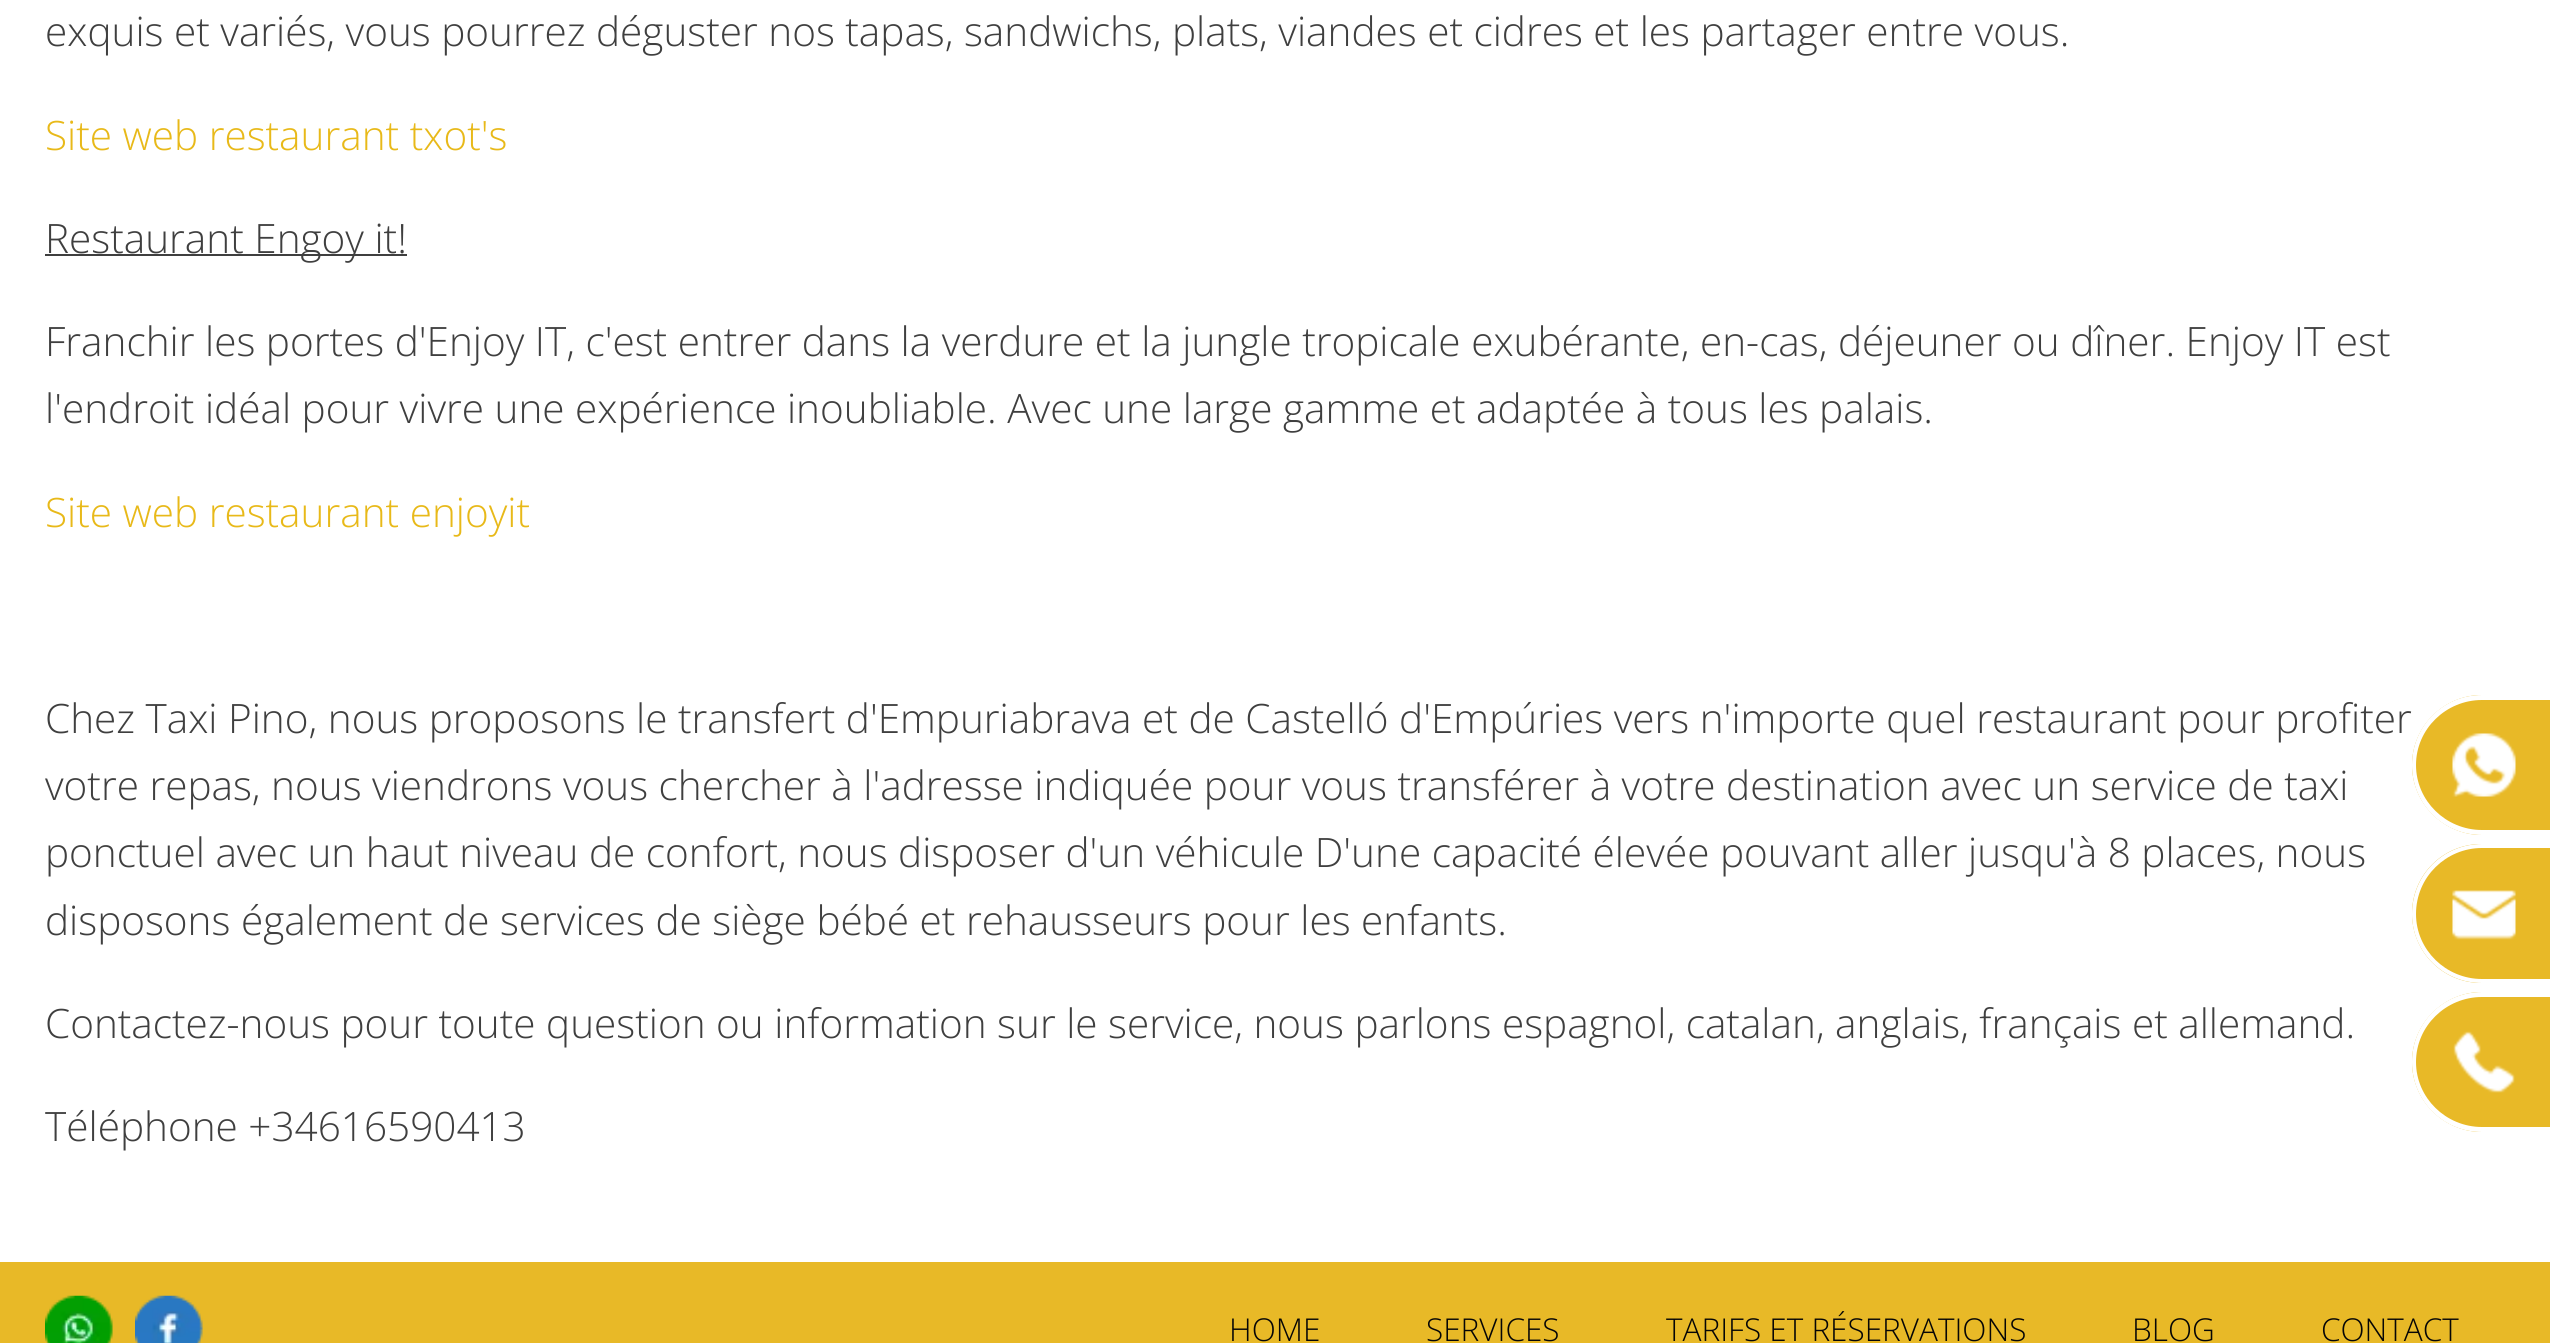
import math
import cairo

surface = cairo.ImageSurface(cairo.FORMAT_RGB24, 2550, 1343)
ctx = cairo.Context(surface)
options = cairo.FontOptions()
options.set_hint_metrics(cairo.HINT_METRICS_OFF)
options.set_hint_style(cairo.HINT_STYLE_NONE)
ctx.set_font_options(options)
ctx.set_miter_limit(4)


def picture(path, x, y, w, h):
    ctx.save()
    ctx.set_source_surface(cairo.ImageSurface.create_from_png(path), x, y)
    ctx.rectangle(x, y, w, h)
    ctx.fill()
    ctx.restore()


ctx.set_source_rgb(1, 1, 1)
ctx.paint()
ctx.select_font_face("Open Sans Light")
ctx.set_font_size(40.5)
ctx.set_source_rgb(0.247, 0.247, 0.247)
ctx.move_to(45, 46)
ctx.show_text("exquis et variés, vous pourrez déguster nos tapas, sandwichs, plats, viandes et cidres et les partager entre vous.")
ctx.set_source_rgb(0.91, 0.725, 0.098)
ctx.move_to(45, 150)
ctx.show_text("Site web restaurant txot's")
ctx.set_source_rgb(0.247, 0.247, 0.247)
ctx.rectangle(45, 254, 362, 2)
ctx.fill()
ctx.move_to(45, 253)
ctx.show_text("Restaurant Engoy it!")
ctx.move_to(45, 356)
ctx.show_text("Franchir les portes d'Enjoy IT, c'est entrer dans la verdure et la jungle tropicale exubérante, en-cas, déjeuner ou dîner. Enjoy IT est")
ctx.move_to(45, 423)
ctx.show_text("l'endroit idéal pour vivre une expérience inoubliable. Avec une large gamme et adaptée à tous les palais.")
ctx.set_source_rgb(0.91, 0.725, 0.098)
ctx.move_to(45, 527)
ctx.show_text("Site web restaurant enjoyit")
ctx.set_source_rgb(0.247, 0.247, 0.247)
ctx.move_to(45, 733)
ctx.show_text("Chez Taxi Pino, nous proposons le transfert d'Empuriabrava et de Castelló d'Empúries vers n'importe quel restaurant pour profiter")
ctx.move_to(45, 800)
ctx.show_text("votre repas, nous viendrons vous chercher à l'adresse indiquée pour vous transférer à votre destination avec un service de taxi")
ctx.move_to(45, 867)
ctx.show_text("ponctuel avec un haut niveau de confort, nous disposer d'un véhicule D'une capacité élevée pouvant aller jusqu'à 8 places, nous")
ctx.move_to(45, 935)
ctx.show_text("disposons également de services de siège bébé et rehausseurs pour les enfants.")
ctx.move_to(45, 1038)
ctx.show_text("Contactez-nous pour toute question ou information sur le service, nous parlons espagnol, catalan, anglais, français et allemand.")
ctx.move_to(45, 1141)
ctx.show_text("Téléphone +34616590413")
ctx.set_source_rgb(0.91, 0.725, 0.153)
ctx.new_path()
ctx.move_to(2482, 695)
ctx.line_to(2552, 695)
ctx.line_to(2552, 835)
ctx.line_to(2482, 835)
ctx.curve_to(2443.5, 835, 2412, 803.5, 2412, 765)
ctx.curve_to(2412, 726.5, 2443.5, 695, 2482, 695)
ctx.close_path()
ctx.fill()
ctx.set_source_rgb(1, 1, 1)
ctx.set_fill_rule(cairo.FILL_RULE_EVEN_ODD)
ctx.new_path()
ctx.move_to(2482, 695)
ctx.line_to(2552, 695)
ctx.line_to(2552, 835)
ctx.line_to(2482, 835)
ctx.curve_to(2443, 835, 2412, 804, 2412, 765)
ctx.curve_to(2412, 726, 2443, 695, 2482, 695)
ctx.close_path()
ctx.move_to(2482, 700)
ctx.line_to(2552, 700)
ctx.line_to(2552, 830)
ctx.line_to(2482, 830)
ctx.curve_to(2446, 830, 2416, 801, 2416, 765)
ctx.curve_to(2416, 729, 2446, 700, 2482, 700)
ctx.close_path()
ctx.fill()
picture("img1.png", 2452, 733, 64, 64)
ctx.set_source_rgb(0.91, 0.725, 0.153)
ctx.new_path()
ctx.move_to(2481.5, 844)
ctx.line_to(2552, 844)
ctx.line_to(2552, 983)
ctx.line_to(2481.5, 983)
ctx.curve_to(2443, 983, 2412, 952, 2412, 913.5)
ctx.curve_to(2412, 875, 2443, 844, 2481.5, 844)
ctx.close_path()
ctx.fill()
ctx.set_source_rgb(1, 1, 1)
ctx.new_path()
ctx.move_to(2482, 844)
ctx.line_to(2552, 844)
ctx.line_to(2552, 983)
ctx.line_to(2482, 983)
ctx.curve_to(2443, 983, 2412, 952, 2412, 914)
ctx.curve_to(2412, 875, 2443, 844, 2482, 844)
ctx.close_path()
ctx.move_to(2482, 848)
ctx.line_to(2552, 848)
ctx.line_to(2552, 979)
ctx.line_to(2482, 979)
ctx.curve_to(2446, 979, 2416, 950, 2416, 914)
ctx.curve_to(2416, 877, 2446, 848, 2482, 848)
ctx.close_path()
ctx.fill()
picture("img2.png", 2452, 890, 64, 50)
ctx.set_source_rgb(0.91, 0.725, 0.153)
ctx.new_path()
ctx.move_to(2482, 992)
ctx.line_to(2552, 992)
ctx.line_to(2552, 1132)
ctx.line_to(2482, 1132)
ctx.curve_to(2443.5, 1132, 2412, 1100.5, 2412, 1062)
ctx.curve_to(2412, 1023.5, 2443.5, 992, 2482, 992)
ctx.close_path()
ctx.fill()
ctx.set_source_rgb(1, 1, 1)
ctx.new_path()
ctx.move_to(2482, 992)
ctx.line_to(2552, 992)
ctx.line_to(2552, 1132)
ctx.line_to(2482, 1132)
ctx.curve_to(2443, 1132, 2412, 1101, 2412, 1062)
ctx.curve_to(2412, 1023, 2443, 992, 2482, 992)
ctx.close_path()
ctx.move_to(2482, 997)
ctx.line_to(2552, 997)
ctx.line_to(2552, 1127)
ctx.line_to(2482, 1127)
ctx.curve_to(2446, 1127, 2416, 1098, 2416, 1062)
ctx.curve_to(2416, 1026, 2446, 997, 2482, 997)
ctx.close_path()
ctx.fill()
picture("img3.png", 2453, 1031, 62, 62)
ctx.set_source_rgb(0.91, 0.725, 0.153)
ctx.rectangle(0, 1262, 2550, 81)
ctx.fill()
picture("img4.png", 45, 1295, 68, 48)
picture("img5.png", 135, 1295, 68, 48)
ctx.set_font_size(31.5)
ctx.set_source_rgb(0.024, 0.024, 0.024)
ctx.move_to(1229, 1341)
ctx.show_text("HOME")
ctx.move_to(1426, 1341)
ctx.show_text("SERVICES")
ctx.move_to(1666, 1341)
ctx.show_text("TARIFS ET RÉSERVATIONS")
ctx.move_to(2132, 1341)
ctx.show_text("BLOG")
ctx.move_to(2321, 1341)
ctx.show_text("CONTACT")
surface.write_to_png("page.png")
